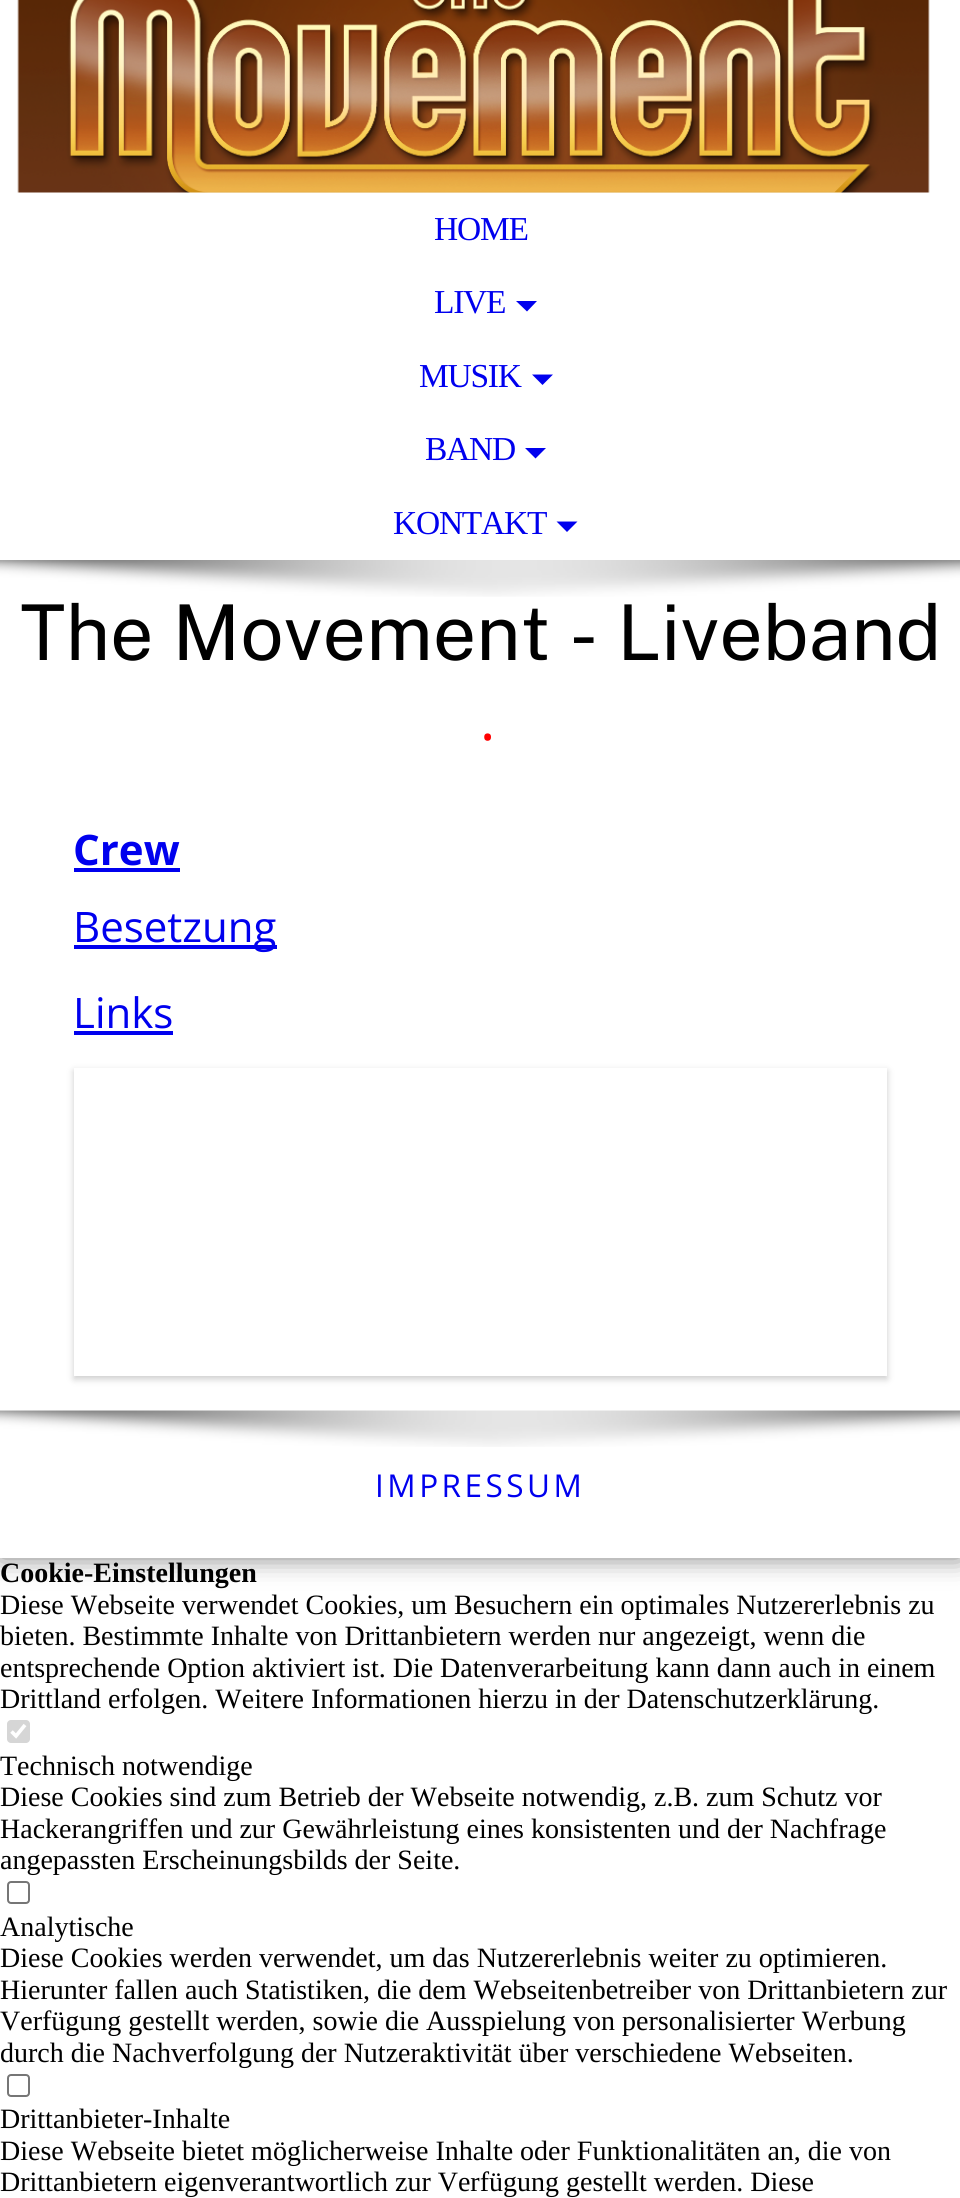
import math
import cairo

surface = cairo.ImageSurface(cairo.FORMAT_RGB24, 960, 2198)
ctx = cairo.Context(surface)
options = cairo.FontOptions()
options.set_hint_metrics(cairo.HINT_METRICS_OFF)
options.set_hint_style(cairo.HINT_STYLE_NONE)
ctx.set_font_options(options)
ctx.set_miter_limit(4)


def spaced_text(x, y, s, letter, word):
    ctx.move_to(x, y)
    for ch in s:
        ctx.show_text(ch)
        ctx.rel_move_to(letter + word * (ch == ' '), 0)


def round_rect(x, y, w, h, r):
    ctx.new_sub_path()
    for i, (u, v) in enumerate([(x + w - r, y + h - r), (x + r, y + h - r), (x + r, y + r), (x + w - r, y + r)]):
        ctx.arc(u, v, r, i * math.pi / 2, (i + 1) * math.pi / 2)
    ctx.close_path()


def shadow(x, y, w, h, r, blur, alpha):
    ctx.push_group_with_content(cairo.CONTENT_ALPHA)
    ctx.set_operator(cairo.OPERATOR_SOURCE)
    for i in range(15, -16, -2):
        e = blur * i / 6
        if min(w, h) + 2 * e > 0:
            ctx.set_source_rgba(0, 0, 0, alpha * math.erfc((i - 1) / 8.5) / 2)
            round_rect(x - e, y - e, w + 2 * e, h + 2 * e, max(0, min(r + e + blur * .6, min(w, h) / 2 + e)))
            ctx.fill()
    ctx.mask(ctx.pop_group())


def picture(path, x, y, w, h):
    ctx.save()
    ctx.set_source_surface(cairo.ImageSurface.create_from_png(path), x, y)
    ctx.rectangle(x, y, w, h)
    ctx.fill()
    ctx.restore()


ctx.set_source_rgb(1, 1, 1)
ctx.paint()
ctx.save()
ctx.set_fill_rule(cairo.FILL_RULE_EVEN_ODD)
ctx.new_path()
ctx.move_to(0, 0)
ctx.line_to(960, 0)
ctx.line_to(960, 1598)
ctx.line_to(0, 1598)
ctx.close_path()
ctx.move_to(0, 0)
ctx.line_to(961, 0)
ctx.line_to(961, 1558)
ctx.line_to(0, 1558)
ctx.close_path()
ctx.clip()
ctx.set_source_rgb(0, 0, 0)
shadow(0, 0, 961, 1558, 0, 13, 0.5)
ctx.restore()
picture("img1.png", 17, 0, 913, 193)
ctx.select_font_face("Liberation Serif")
ctx.set_font_size(33.5)
ctx.set_source_rgb(0, 0, 0.933)
spaced_text(434, 240, "HOME", -1.25, 0)
spaced_text(434, 313, "LIVE", -1.25, 0)
ctx.new_path()
ctx.move_to(516, 301)
ctx.line_to(537, 301)
ctx.line_to(527, 311.5)
ctx.close_path()
ctx.fill()
spaced_text(419, 387, "MUSIK", -1.25, 0)
ctx.new_path()
ctx.move_to(532, 374.5)
ctx.line_to(553, 374.5)
ctx.line_to(542.5, 385)
ctx.close_path()
ctx.fill()
spaced_text(425, 460, "BAND", -1.25, 0)
ctx.new_path()
ctx.move_to(525, 448)
ctx.line_to(546, 448)
ctx.line_to(535.5, 458.5)
ctx.close_path()
ctx.fill()
spaced_text(393, 534, "KONTAKT", -1.25, 0)
ctx.new_path()
ctx.move_to(556.5, 521.5)
ctx.line_to(577.5, 521.5)
ctx.line_to(567, 532)
ctx.close_path()
ctx.fill()
picture("img2.png", 0, 560, 960, 37)
ctx.select_font_face("Public Sans")
ctx.set_font_size(76.9)
ctx.set_source_rgb(0, 0, 0)
ctx.move_to(20, 660)
ctx.show_text("The Movement - Liveband")
ctx.select_font_face("Open Sans")
ctx.set_font_size(58)
ctx.set_source_rgb(1, 0, 0)
ctx.move_to(480, 740)
ctx.show_text(".")
ctx.select_font_face("Open Sans", cairo.FONT_SLANT_NORMAL, cairo.FONT_WEIGHT_BOLD)
ctx.set_font_size(42)
ctx.set_source_rgb(0, 0, 0.933)
ctx.move_to(73, 865)
ctx.show_text("Crew")
ctx.rectangle(74, 868, 106, 4)
ctx.fill()
ctx.rectangle(74, 945, 203, 4)
ctx.fill()
ctx.select_font_face("Open Sans")
ctx.move_to(73, 942)
ctx.show_text("Besetzung")
ctx.move_to(73, 1028)
ctx.show_text("Links")
ctx.rectangle(74, 1031, 99, 4)
ctx.fill()
ctx.save()
ctx.set_fill_rule(cairo.FILL_RULE_EVEN_ODD)
ctx.new_path()
ctx.move_to(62, 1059)
ctx.line_to(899, 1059)
ctx.line_to(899, 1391)
ctx.line_to(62, 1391)
ctx.close_path()
ctx.move_to(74, 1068)
ctx.line_to(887, 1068)
ctx.line_to(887, 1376)
ctx.line_to(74, 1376)
ctx.close_path()
ctx.clip()
ctx.set_source_rgb(0.8, 0.8, 0.8)
shadow(74, 1071, 813, 308, 0, 3.5, 1)
ctx.restore()
picture("img3.png", 0, 1410, 960, 37)
ctx.set_font_size(31.5)
spaced_text(375, 1497, "IMPRESSUM", 3.5, 0)
ctx.select_font_face("Liberation Serif", cairo.FONT_SLANT_NORMAL, cairo.FONT_WEIGHT_BOLD)
ctx.set_font_size(28)
ctx.set_source_rgb(0, 0, 0)
ctx.move_to(0, 1582)
ctx.show_text("Cookie-Einstellungen")
ctx.select_font_face("Liberation Serif")
ctx.move_to(0, 1614)
ctx.show_text("Diese Webseite verwendet Cookies, um Besuchern ein optimales Nutzererlebnis zu")
ctx.move_to(0, 1645)
ctx.show_text("bieten. Bestimmte Inhalte von Drittanbietern werden nur angezeigt, wenn die")
ctx.move_to(0, 1677)
ctx.show_text("entsprechende Option aktiviert ist. Die Datenverarbeitung kann dann auch in einem")
ctx.move_to(0, 1708)
ctx.show_text("Drittland erfolgen. Weitere Informationen hierzu in der Datenschutzerklärung.")
ctx.set_source_rgb(0.839, 0.839, 0.839)
round_rect(7, 1720, 23, 23, 4)
ctx.fill()
ctx.new_path()
ctx.move_to(11.5, 1731.5)
ctx.line_to(16, 1736)
ctx.line_to(25, 1725)
ctx.set_source_rgb(1, 1, 1)
ctx.set_line_width(3.6)
ctx.stroke()
ctx.set_source_rgb(0, 0, 0)
ctx.move_to(0, 1775)
ctx.show_text("Technisch notwendige")
ctx.move_to(0, 1806)
ctx.show_text("Diese Cookies sind zum Betrieb der Webseite notwendig, z.B. zum Schutz vor")
ctx.move_to(0, 1838)
ctx.show_text("Hackerangriffen und zur Gewährleistung eines konsistenten und der Nachfrage")
ctx.move_to(0, 1869)
ctx.show_text("angepassten Erscheinungsbilds der Seite.")
round_rect(8, 1882, 21, 21, 3)
ctx.set_source_rgb(0.463, 0.463, 0.463)
ctx.set_line_width(2)
ctx.stroke()
ctx.set_source_rgb(0, 0, 0)
ctx.move_to(0, 1936)
ctx.show_text("Analytische")
ctx.move_to(0, 1967)
ctx.show_text("Diese Cookies werden verwendet, um das Nutzererlebnis weiter zu optimieren.")
ctx.move_to(0, 1999)
ctx.show_text("Hierunter fallen auch Statistiken, die dem Webseitenbetreiber von Drittanbietern zur")
ctx.move_to(0, 2030)
ctx.show_text("Verfügung gestellt werden, sowie die Ausspielung von personalisierter Werbung")
ctx.move_to(0, 2062)
ctx.show_text("durch die Nachverfolgung der Nutzeraktivität über verschiedene Webseiten.")
round_rect(8, 2075, 21, 21, 3)
ctx.set_source_rgb(0.463, 0.463, 0.463)
ctx.stroke()
ctx.set_source_rgb(0, 0, 0)
ctx.move_to(0, 2128)
ctx.show_text("Drittanbieter-Inhalte")
ctx.move_to(0, 2160)
ctx.show_text("Diese Webseite bietet möglicherweise Inhalte oder Funktionalitäten an, die von")
ctx.move_to(0, 2191)
ctx.show_text("Drittanbietern eigenverantwortlich zur Verfügung gestellt werden. Diese")
surface.write_to_png("page.png")
